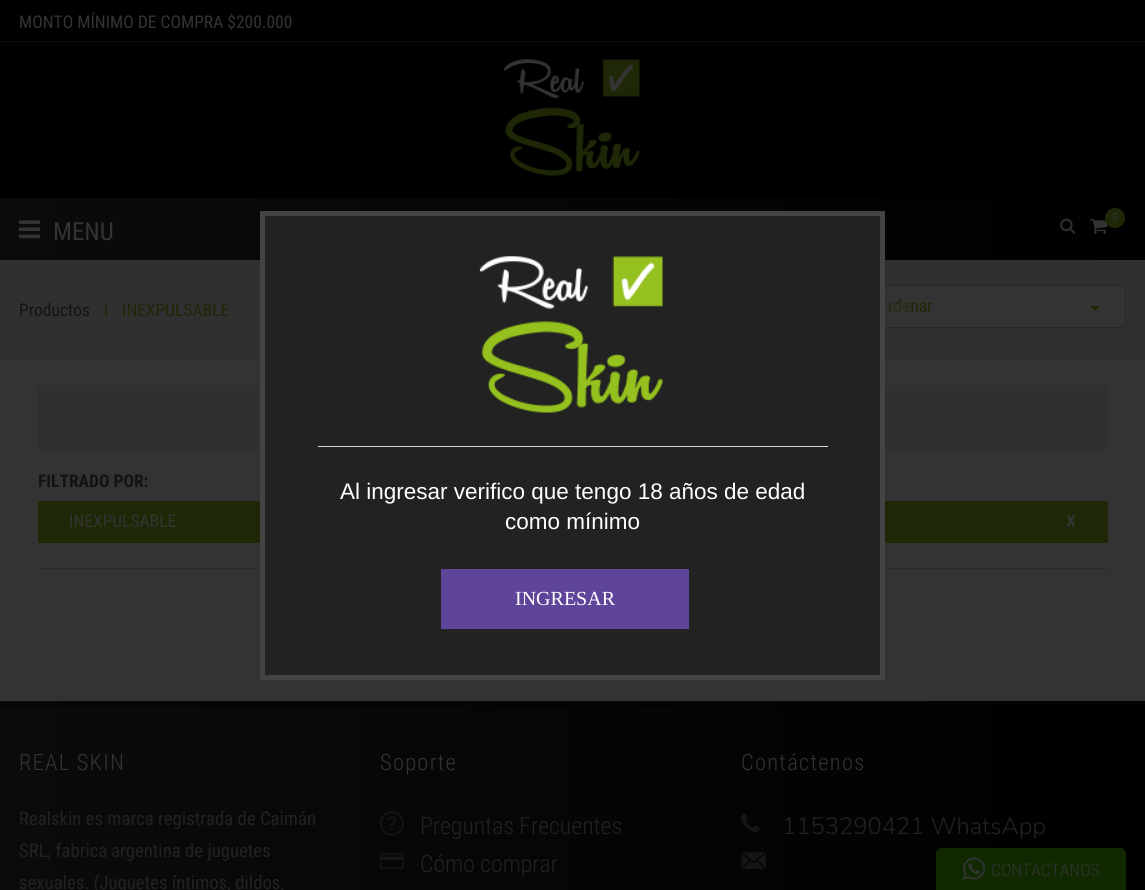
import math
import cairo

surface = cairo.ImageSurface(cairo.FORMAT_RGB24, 1145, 890)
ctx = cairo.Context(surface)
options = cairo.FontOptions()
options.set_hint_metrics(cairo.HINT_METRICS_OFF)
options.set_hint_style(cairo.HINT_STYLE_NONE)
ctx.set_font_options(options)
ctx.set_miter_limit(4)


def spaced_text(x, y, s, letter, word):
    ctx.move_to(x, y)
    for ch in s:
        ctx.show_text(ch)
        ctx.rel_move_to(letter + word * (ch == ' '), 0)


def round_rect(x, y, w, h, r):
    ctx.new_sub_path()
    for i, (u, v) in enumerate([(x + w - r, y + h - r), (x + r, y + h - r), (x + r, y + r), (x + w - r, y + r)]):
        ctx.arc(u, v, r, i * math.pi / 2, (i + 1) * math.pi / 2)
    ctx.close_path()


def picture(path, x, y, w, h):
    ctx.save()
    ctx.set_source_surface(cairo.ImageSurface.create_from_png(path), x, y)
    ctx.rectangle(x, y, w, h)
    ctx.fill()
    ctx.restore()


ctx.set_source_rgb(0.2, 0.2, 0.2)
ctx.paint()
ctx.set_source_rgb(0, 0, 0)
ctx.rectangle(0, 0, 1145, 198)
ctx.fill()
ctx.set_source_rgb(0.051, 0.051, 0.051)
ctx.rectangle(0, 41, 1145, 1)
ctx.fill()
ctx.select_font_face("Roboto Condensed")
ctx.set_font_size(17.5)
ctx.set_source_rgb(0.2, 0.2, 0.2)
ctx.move_to(19, 28)
ctx.show_text("MONTO MÍNIMO DE COMPRA $200.000")
picture("img1.png", 503, 59, 137, 117)
gradient = cairo.LinearGradient(0, 229, 1145, 229)
gradient.add_color_stop_rgba(0, 0.043, 0.043, 0.043, 1)
gradient.add_color_stop_rgba(1, 0, 0, 0, 1)
ctx.set_source(gradient)
ctx.rectangle(0, 198, 1145, 62)
ctx.fill()
picture("img2.png", 1090, 219, 18, 15)
ctx.set_source_rgb(0.118, 0.153, 0.027)
ctx.arc(1115, 218, 10, 0, 2 * math.pi)
ctx.fill()
ctx.set_font_size(12)
ctx.set_source_rgb(0.2, 0.2, 0.2)
ctx.move_to(1112, 221)
ctx.show_text("0")
picture("img3.png", 18, 220, 23, 19)
ctx.set_font_size(25)
ctx.move_to(53, 240)
ctx.show_text("MENU")
picture("img4.png", 1060, 218, 16, 16)
ctx.set_source_rgb(0.188, 0.188, 0.188)
ctx.rectangle(0, 260, 1145, 99)
ctx.fill()
ctx.set_source_rgb(0.169, 0.169, 0.169)
ctx.rectangle(0, 359, 1145, 1)
ctx.fill()
ctx.set_font_size(17.5)
ctx.set_source_rgb(0.078, 0.078, 0.078)
ctx.move_to(19, 316)
ctx.show_text("Productos")
ctx.set_source_rgb(0.118, 0.153, 0.027)
ctx.move_to(104, 316)
ctx.show_text("I")
ctx.move_to(122, 316)
ctx.show_text("INEXPULSABLE")
ctx.set_source_rgb(0.2, 0.2, 0.2)
round_rect(851.5, 285.5, 274, 42, 4.5)
ctx.fill_preserve()
ctx.set_source_rgb(0.161, 0.161, 0.161)
ctx.set_line_width(1)
ctx.stroke()
ctx.set_source_rgb(0.118, 0.153, 0.027)
ctx.move_to(888, 312)
ctx.show_text("rdenar")
ctx.new_path()
ctx.move_to(1090, 306)
ctx.line_to(1100, 306)
ctx.line_to(1095, 311)
ctx.close_path()
ctx.fill()
ctx.set_source_rgb(0.18, 0.188, 0.161)
ctx.move_to(881, 312)
ctx.show_text("enar")
ctx.set_source_rgb(0.188, 0.188, 0.188)
ctx.rectangle(38, 385, 1070, 65)
ctx.fill()
ctx.set_source_rgb(0.169, 0.169, 0.169)
ctx.rectangle(38, 568, 1070, 1)
ctx.fill()
ctx.select_font_face("Roboto Condensed", cairo.FONT_SLANT_NORMAL, cairo.FONT_WEIGHT_BOLD)
ctx.set_source_rgb(0.078, 0.078, 0.078)
ctx.move_to(38, 487)
ctx.show_text("FILTRADO POR:")
ctx.set_source_rgb(0.118, 0.153, 0.027)
ctx.rectangle(38, 501, 1070, 42)
ctx.fill()
ctx.select_font_face("Roboto Condensed")
ctx.set_source_rgb(0.2, 0.2, 0.2)
ctx.move_to(69, 527)
ctx.show_text("INEXPULSABLE")
ctx.select_font_face("Roboto Condensed", cairo.FONT_SLANT_NORMAL, cairo.FONT_WEIGHT_BOLD)
ctx.move_to(1066, 527)
ctx.show_text("X")
gradient = cairo.LinearGradient(0, 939, 1145, 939)
gradient.add_color_stop_rgba(0, 0.043, 0.043, 0.043, 1)
gradient.add_color_stop_rgba(1, 0, 0, 0, 1)
ctx.set_source(gradient)
ctx.rectangle(0, 708, 1145, 182)
ctx.fill()
gradient = cairo.LinearGradient(0, 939, 1145, 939)
gradient.add_color_stop_rgba(0, 0.031, 0.031, 0.031, 1)
gradient.add_color_stop_rgba(1, 0, 0, 0, 1)
ctx.set_source(gradient)
ctx.rectangle(0, 701, 1145, 7)
ctx.fill()
ctx.select_font_face("Roboto Condensed Light")
ctx.set_font_size(22.5)
ctx.set_source_rgb(0.2, 0.2, 0.2)
spaced_text(19, 770, "REAL SKIN", 1.25, 0)
ctx.select_font_face("Roboto Condensed")
ctx.set_font_size(18.75)
ctx.set_source_rgb(0.133, 0.133, 0.133)
ctx.move_to(19, 825)
ctx.show_text("Realskin es marca registrada de Caimán")
ctx.move_to(19, 857)
ctx.show_text("SRL, fabrica")
ctx.move_to(111, 857)
ctx.show_text("argentina de juguetes")
ctx.move_to(19, 889)
ctx.show_text("sexuales. (Juguetes íntimos, dildos,")
ctx.select_font_face("Roboto Condensed Light")
ctx.set_font_size(22.5)
ctx.set_source_rgb(0.2, 0.2, 0.2)
spaced_text(380, 770, "Soporte", 1.25, 0)
picture("img5.png", 380, 811, 24, 25)
ctx.set_font_size(23.75)
ctx.set_source_rgb(0.133, 0.133, 0.133)
ctx.move_to(420, 834)
ctx.show_text("Preguntas Frecuentes")
picture("img6.png", 380, 853, 24, 16)
ctx.move_to(420, 872)
ctx.show_text("Cómo comprar")
ctx.set_font_size(22.5)
ctx.set_source_rgb(0.2, 0.2, 0.2)
spaced_text(741, 770, "Contáctenos", 1.25, 0)
picture("img7.png", 741, 813, 19, 19)
ctx.select_font_face("Nunito Light")
ctx.set_font_size(23.75)
ctx.set_source_rgb(0.133, 0.133, 0.133)
ctx.move_to(782, 834)
ctx.show_text("1153290421 WhatsApp")
picture("img8.png", 741, 852, 25, 17)
ctx.rectangle(265, 216, 615, 459)
ctx.fill()
picture("img9.png", 479, 256, 184, 157)
ctx.rectangle(262.5, 213.5, 620, 464)
ctx.set_source_rgb(0.267, 0.267, 0.267)
ctx.set_line_width(5)
ctx.stroke()
ctx.set_source_rgb(0.851, 0.851, 0.851)
ctx.rectangle(318, 446, 510, 1)
ctx.fill()
ctx.select_font_face("Liberation Sans")
ctx.set_font_size(22.5)
ctx.set_source_rgb(1, 1, 1)
ctx.move_to(340, 499)
ctx.show_text("Al ingresar verifico que tengo 18 años de edad")
ctx.move_to(505, 529)
ctx.show_text("como mínimo")
ctx.set_source_rgb(0.373, 0.271, 0.6)
ctx.rectangle(441, 569, 248, 60)
ctx.fill()
ctx.select_font_face("Liberation Serif")
ctx.set_font_size(20)
ctx.set_source_rgb(1, 1, 1)
ctx.move_to(515, 605)
ctx.show_text("INGRESAR")
ctx.set_source_rgb(0.063, 0.161, 0)
ctx.new_path()
ctx.move_to(942, 848.5)
ctx.line_to(1120, 848.5)
ctx.curve_to(1123, 848.5, 1125.5, 851, 1125.5, 854)
ctx.line_to(1125.5, 889.5)
ctx.line_to(936.5, 889.5)
ctx.line_to(936.5, 854)
ctx.curve_to(936.5, 851, 939, 848.5, 942, 848.5)
ctx.close_path()
ctx.fill_preserve()
ctx.set_line_width(1)
ctx.stroke()
picture("img10.png", 962, 857, 23, 23)
ctx.select_font_face("Roboto Condensed Light")
ctx.set_font_size(17.5)
ctx.set_source_rgb(0.2, 0.2, 0.2)
ctx.move_to(991, 876)
ctx.show_text("CONTACTANOS")
surface.write_to_png("page.png")
